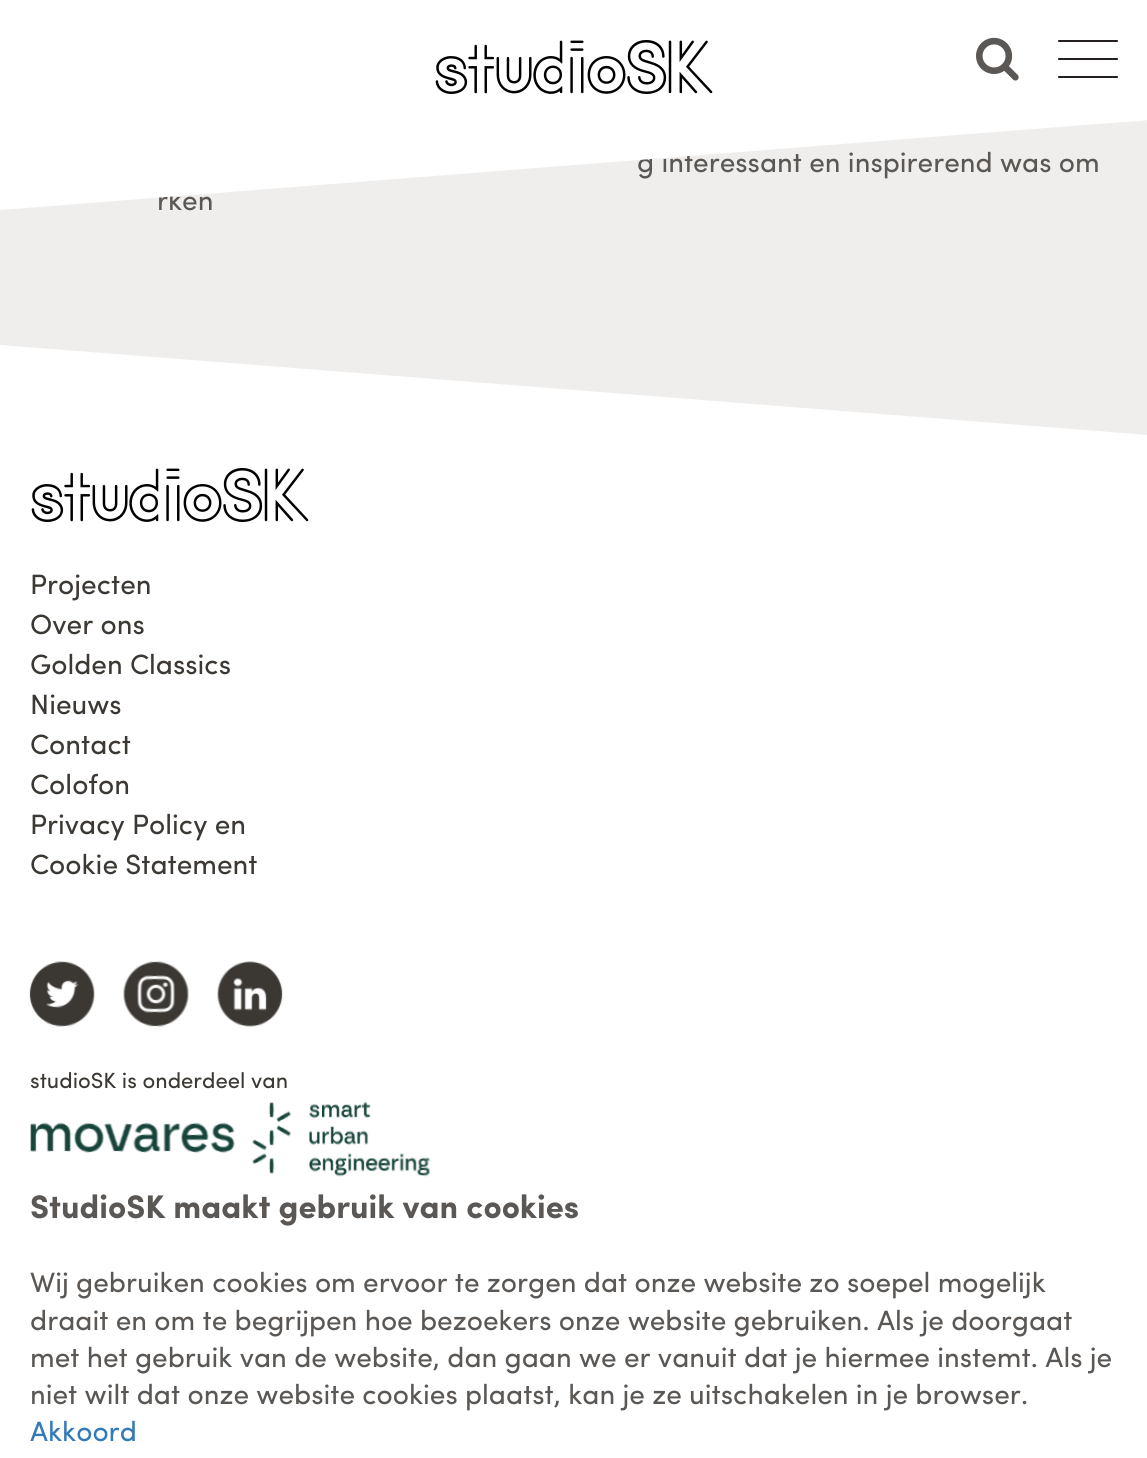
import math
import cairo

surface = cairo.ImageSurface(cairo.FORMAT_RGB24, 1147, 1458)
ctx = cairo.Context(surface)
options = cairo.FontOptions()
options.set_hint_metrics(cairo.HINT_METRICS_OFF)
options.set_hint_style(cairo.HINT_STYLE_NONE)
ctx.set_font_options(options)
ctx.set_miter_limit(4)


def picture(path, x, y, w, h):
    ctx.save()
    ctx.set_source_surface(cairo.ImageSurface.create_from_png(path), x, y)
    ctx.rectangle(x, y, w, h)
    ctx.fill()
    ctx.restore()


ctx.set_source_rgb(1, 1, 1)
ctx.paint()
ctx.set_source_rgb(0.941, 0.933, 0.925)
ctx.new_path()
ctx.move_to(0, -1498)
ctx.line_to(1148, -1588)
ctx.line_to(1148, 437)
ctx.line_to(0, 527)
ctx.close_path()
ctx.fill()
ctx.select_font_face("Sofia")
ctx.set_font_size(28)
ctx.set_source_rgb(0.353, 0.341, 0.329)
ctx.move_to(637, 172)
ctx.show_text("g interessant en inspirerend was om")
ctx.move_to(157, 210)
ctx.show_text("rken")
ctx.set_source_rgb(1, 1, 1)
ctx.new_path()
ctx.move_to(0, -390)
ctx.line_to(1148, -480)
ctx.line_to(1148, 120)
ctx.line_to(0, 210)
ctx.close_path()
ctx.fill()
gradient = cairo.LinearGradient(574, 0, 574, 128)
gradient.add_color_stop_rgba(0.7, 1, 1, 1, 1)
gradient.add_color_stop_rgba(1, 1, 1, 1, 0)
ctx.set_source(gradient)
ctx.rectangle(1122, 120, 25, 3)
ctx.fill()
picture("img1.png", 435, 40, 278, 54)
picture("img2.png", 976, 37, 43, 44)
picture("img3.png", 1058, 40, 60, 38)
ctx.save()
ctx.rectangle(0, 0, 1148, 1186)
ctx.clip()
ctx.set_source_rgb(1, 1, 1)
ctx.new_path()
ctx.move_to(0, 345)
ctx.line_to(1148, 435)
ctx.line_to(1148, 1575)
ctx.line_to(0, 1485)
ctx.close_path()
ctx.fill()
ctx.restore()
picture("img1.png", 31, 468, 278, 54)
ctx.set_source_rgb(0.235, 0.22, 0.204)
ctx.move_to(30, 594)
ctx.show_text("Projecten")
ctx.move_to(30, 634)
ctx.show_text("Over ons")
ctx.move_to(30, 674)
ctx.show_text("Golden Classics")
ctx.move_to(30, 714)
ctx.show_text("Nieuws")
ctx.move_to(30, 754)
ctx.show_text("Contact")
ctx.move_to(30, 794)
ctx.show_text("Colofon")
ctx.move_to(30, 834)
ctx.show_text("Privacy Policy en")
ctx.move_to(30, 874)
ctx.show_text("Cookie Statement")
picture("img4.png", 29, 961, 66, 66)
picture("img5.png", 123, 961, 66, 66)
picture("img6.png", 217, 961, 66, 66)
ctx.set_font_size(22)
ctx.move_to(30, 1088)
ctx.show_text("studioSK is onderdeel van")
picture("img7.png", 29, 1101, 402, 76)
ctx.select_font_face("Sofia", cairo.FONT_SLANT_NORMAL, cairo.FONT_WEIGHT_BOLD)
ctx.set_font_size(32.75)
ctx.set_source_rgb(0.353, 0.341, 0.329)
ctx.move_to(30, 1218)
ctx.show_text("StudioSK maakt gebruik van cookies")
ctx.select_font_face("Sofia")
ctx.set_font_size(28)
ctx.move_to(30, 1292)
ctx.show_text("Wij gebruiken cookies om ervoor te zorgen dat onze website zo soepel mogelijk")
ctx.move_to(30, 1330)
ctx.show_text("draait en om te begrijpen hoe bezoekers onze website gebruiken. Als je doorgaat")
ctx.move_to(30, 1367)
ctx.show_text("met het gebruik van de website, dan gaan we er vanuit dat je hiermee instemt. Als je")
ctx.move_to(30, 1404)
ctx.show_text("niet wilt dat onze website cookies plaatst, kan je ze uitschakelen in je browser.")
ctx.set_source_rgb(0.2, 0.478, 0.718)
ctx.move_to(30, 1441)
ctx.show_text("Akkoord")
surface.write_to_png("page.png")
